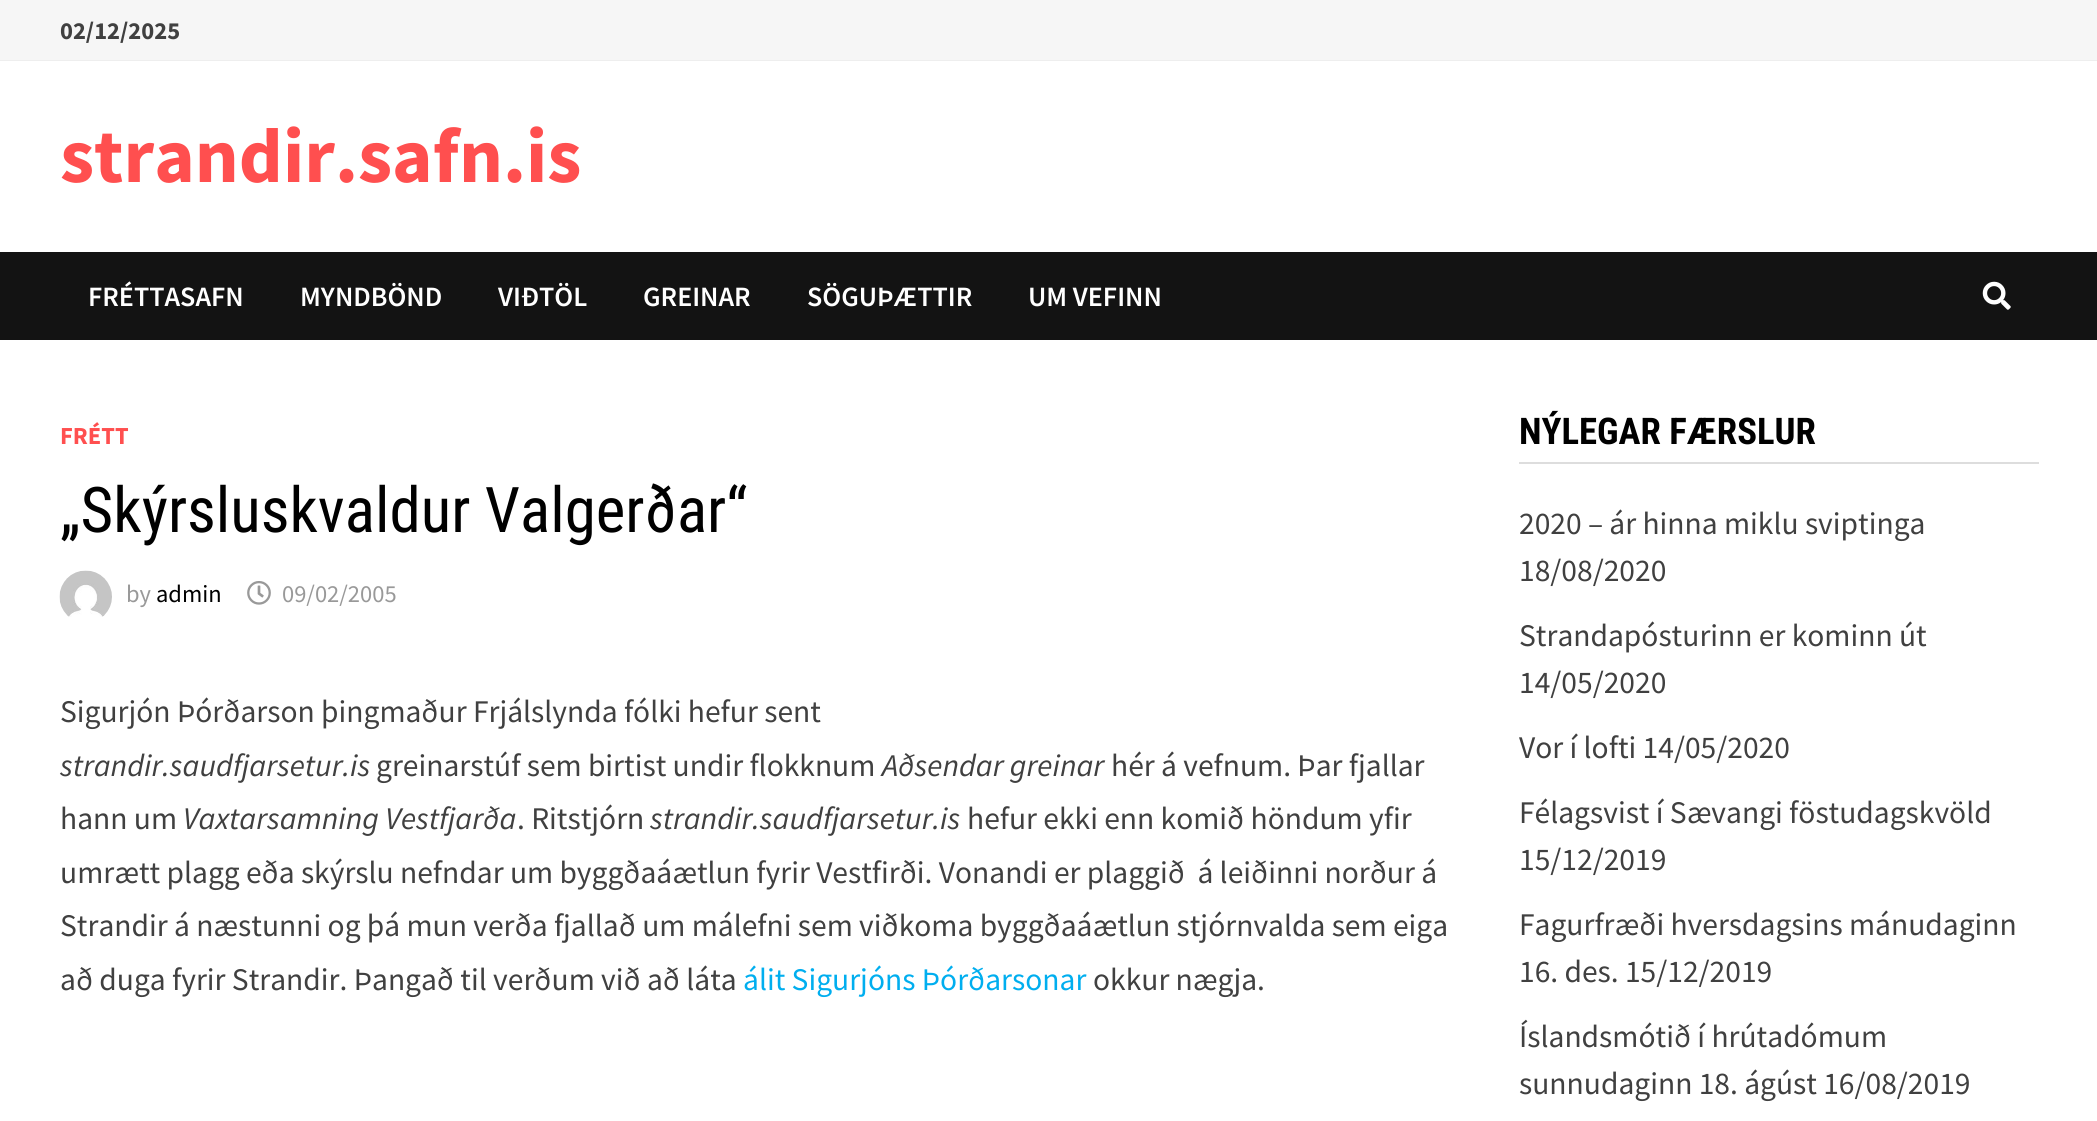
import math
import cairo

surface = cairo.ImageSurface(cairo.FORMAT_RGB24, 2097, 1121)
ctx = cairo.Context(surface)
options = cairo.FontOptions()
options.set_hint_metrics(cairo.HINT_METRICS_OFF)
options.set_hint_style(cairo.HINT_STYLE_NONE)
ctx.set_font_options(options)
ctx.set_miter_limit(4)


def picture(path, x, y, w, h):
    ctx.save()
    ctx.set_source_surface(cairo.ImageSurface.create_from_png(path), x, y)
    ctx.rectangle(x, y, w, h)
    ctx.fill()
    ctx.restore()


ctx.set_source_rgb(1, 1, 1)
ctx.paint()
ctx.set_source_rgb(0.961, 0.961, 0.961)
ctx.rectangle(0, 0, 2097, 60)
ctx.fill()
ctx.set_source_rgb(0.933, 0.933, 0.933)
ctx.rectangle(0, 60, 2097, 1)
ctx.fill()
ctx.select_font_face("Source Sans Pro", cairo.FONT_SLANT_NORMAL, cairo.FONT_WEIGHT_BOLD)
ctx.set_font_size(24.5)
ctx.set_source_rgb(0.251, 0.251, 0.251)
ctx.move_to(60, 39)
ctx.show_text("02/12/2025")
ctx.set_font_size(77)
ctx.set_source_rgb(1, 0.31, 0.31)
ctx.move_to(60, 182)
ctx.show_text("strandir.safn.is")
ctx.set_source_rgb(0.078, 0.078, 0.078)
ctx.rectangle(0, 252, 2097, 88)
ctx.fill()
ctx.select_font_face("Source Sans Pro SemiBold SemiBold")
ctx.set_font_size(28)
ctx.set_source_rgb(1, 1, 1)
ctx.move_to(88, 306)
ctx.show_text("FRÉTTASAFN")
ctx.move_to(300, 306)
ctx.show_text("MYNDBÖND")
ctx.move_to(498, 306)
ctx.show_text("VIÐTÖL")
ctx.move_to(643, 306)
ctx.show_text("GREINAR")
ctx.move_to(807, 306)
ctx.show_text("SÖGUÞÆTTIR")
ctx.move_to(1028, 306)
ctx.show_text("UM VEFINN")
picture("img1.png", 1982, 281, 29, 29)
ctx.select_font_face("Source Sans Pro", cairo.FONT_SLANT_NORMAL, cairo.FONT_WEIGHT_BOLD)
ctx.set_font_size(24.5)
ctx.set_source_rgb(1, 0.31, 0.31)
ctx.move_to(60, 444)
ctx.show_text("FRÉTT")
ctx.select_font_face("Roboto Condensed")
ctx.set_font_size(63)
ctx.set_source_rgb(0, 0, 0)
ctx.move_to(60, 532)
ctx.show_text("„Skýrsluskvaldur Valgerðar“")
picture("img2.png", 59, 570, 53, 47)
ctx.select_font_face("Source Sans Pro")
ctx.set_font_size(24.5)
ctx.set_source_rgb(0.6, 0.6, 0.6)
ctx.move_to(126, 602)
ctx.show_text("by")
ctx.set_source_rgb(0, 0, 0)
ctx.move_to(156, 602)
ctx.show_text("admin")
picture("img3.png", 247, 581, 24, 24)
ctx.set_source_rgb(0.6, 0.6, 0.6)
ctx.move_to(282, 602)
ctx.show_text("09/02/2005")
ctx.set_font_size(31.5)
ctx.set_source_rgb(0.251, 0.251, 0.251)
ctx.move_to(60, 722)
ctx.show_text("Sigurjón Þórðarson þingmaður Frjálslynda fólki hefur sent")
ctx.select_font_face("Source Sans Pro", cairo.FONT_SLANT_ITALIC)
ctx.move_to(60, 776)
ctx.show_text("strandir.saudfjarsetur.is")
ctx.select_font_face("Source Sans Pro")
ctx.move_to(376, 776)
ctx.show_text("greinarstúf sem birtist undir flokknum")
ctx.select_font_face("Source Sans Pro", cairo.FONT_SLANT_ITALIC)
ctx.move_to(882, 776)
ctx.show_text("Aðsendar greinar")
ctx.select_font_face("Source Sans Pro")
ctx.move_to(1111, 776)
ctx.show_text("hér á vefnum. Þar fjallar")
ctx.move_to(60, 829)
ctx.show_text("hann um")
ctx.select_font_face("Source Sans Pro", cairo.FONT_SLANT_ITALIC)
ctx.move_to(183, 829)
ctx.show_text("Vaxtarsamning Vestfjarða")
ctx.select_font_face("Source Sans Pro")
ctx.move_to(517, 829)
ctx.show_text(". Ritstjórn")
ctx.select_font_face("Source Sans Pro", cairo.FONT_SLANT_ITALIC)
ctx.move_to(650, 829)
ctx.show_text("strandir.saudfjarsetur.is")
ctx.select_font_face("Source Sans Pro")
ctx.move_to(967, 829)
ctx.show_text("hefur ekki enn komið höndum yfir")
ctx.move_to(60, 883)
ctx.show_text("umrætt plagg eða skýrslu nefndar um byggðaáætlun fyrir Vestfirði. Vonandi er plaggið  á leiðinni norður á")
ctx.move_to(60, 936)
ctx.show_text("Strandir á næstunni og þá mun verða fjallað um málefni sem viðkoma byggðaáætlun stjórnvalda sem eiga")
ctx.move_to(60, 990)
ctx.show_text("að duga fyrir Strandir. Þangað til verðum við að láta")
ctx.set_source_rgb(0, 0.682, 0.937)
ctx.move_to(743, 990)
ctx.show_text("álit Sigurjóns Þórðarsonar")
ctx.set_source_rgb(0.251, 0.251, 0.251)
ctx.move_to(1093, 990)
ctx.show_text("okkur nægja.")
ctx.set_source_rgb(0.867, 0.867, 0.867)
ctx.rectangle(1519, 462, 520, 2)
ctx.fill()
ctx.select_font_face("Roboto Condensed", cairo.FONT_SLANT_NORMAL, cairo.FONT_WEIGHT_BOLD)
ctx.set_font_size(36.75)
ctx.set_source_rgb(0, 0, 0)
ctx.move_to(1519, 444)
ctx.show_text("NÝLEGAR FÆRSLUR")
ctx.select_font_face("Source Sans Pro")
ctx.set_font_size(31.5)
ctx.set_source_rgb(0.251, 0.251, 0.251)
ctx.move_to(1519, 534)
ctx.show_text("2020 – ár hinna miklu sviptinga")
ctx.move_to(1519, 581)
ctx.show_text("18/08/2020")
ctx.move_to(1519, 646)
ctx.show_text("Strandapósturinn er kominn út")
ctx.move_to(1519, 693)
ctx.show_text("14/05/2020")
ctx.move_to(1519, 758)
ctx.show_text("Vor í lofti 14/05/2020")
ctx.move_to(1519, 823)
ctx.show_text("Félagsvist í Sævangi föstudagskvöld")
ctx.move_to(1519, 870)
ctx.show_text("15/12/2019")
ctx.move_to(1519, 935)
ctx.show_text("Fagurfræði hversdagsins mánudaginn")
ctx.move_to(1519, 982)
ctx.show_text("16. des. 15/12/2019")
ctx.move_to(1519, 1047)
ctx.show_text("Íslandsmótið í hrútadómum")
ctx.move_to(1519, 1094)
ctx.show_text("sunnudaginn 18. ágúst 16/08/2019")
surface.write_to_png("page.png")
